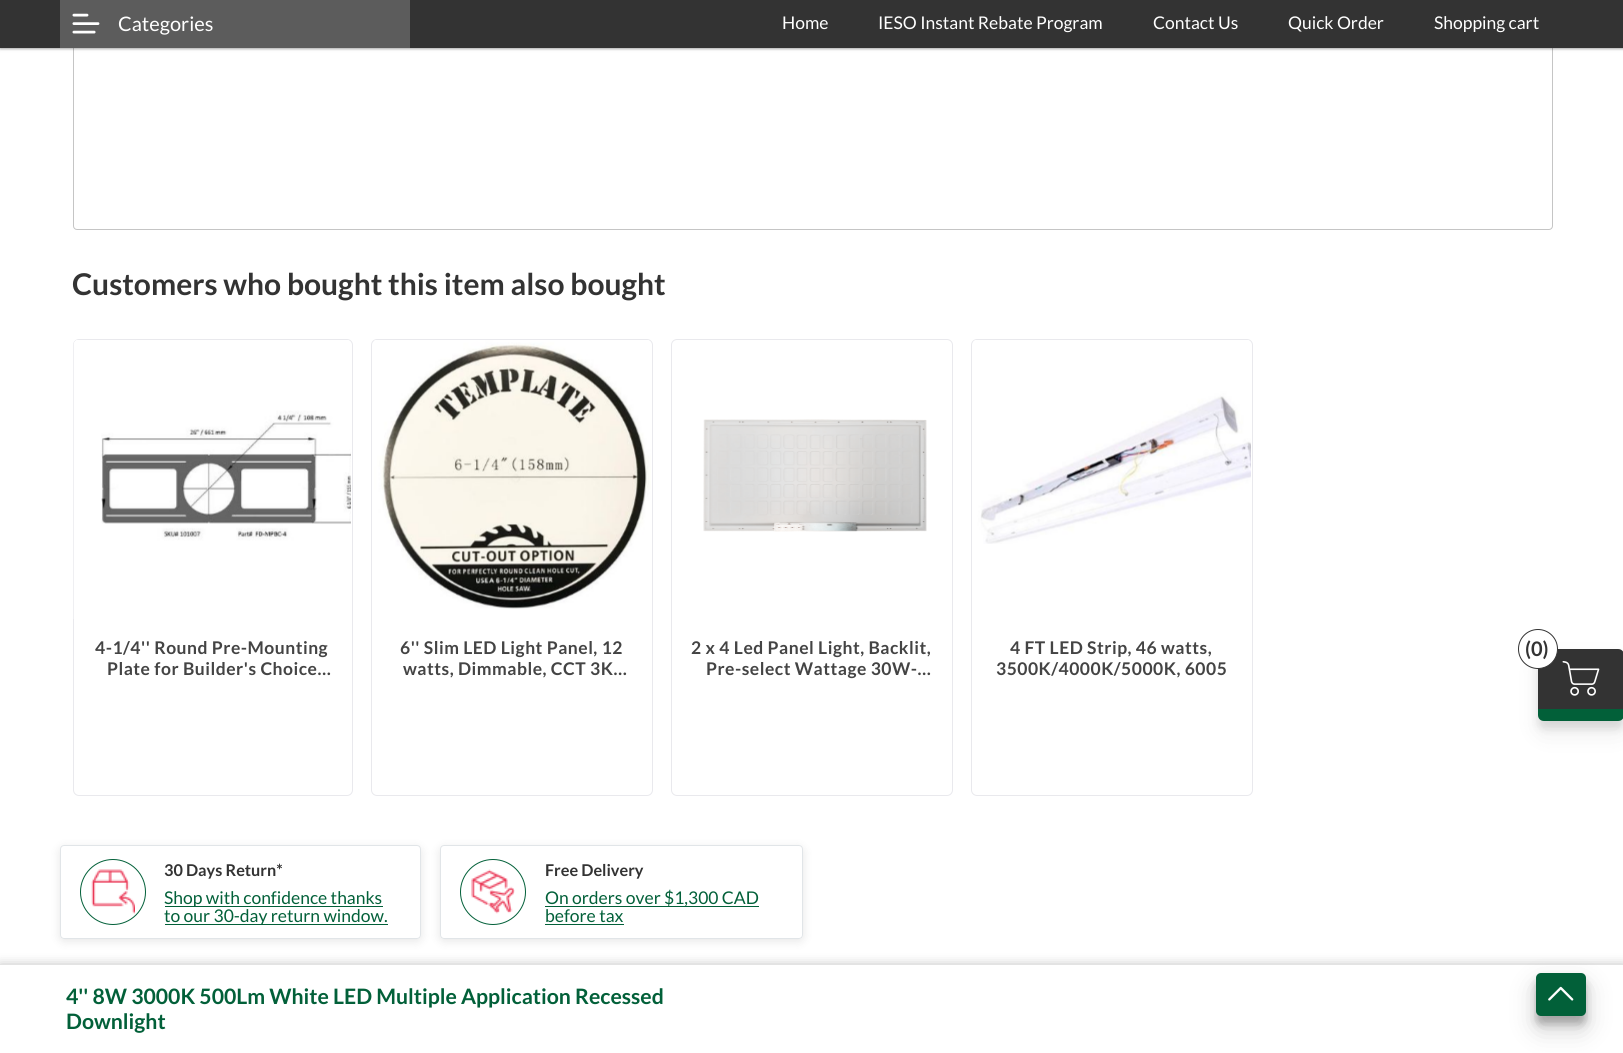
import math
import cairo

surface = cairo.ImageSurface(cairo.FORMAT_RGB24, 1623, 1053)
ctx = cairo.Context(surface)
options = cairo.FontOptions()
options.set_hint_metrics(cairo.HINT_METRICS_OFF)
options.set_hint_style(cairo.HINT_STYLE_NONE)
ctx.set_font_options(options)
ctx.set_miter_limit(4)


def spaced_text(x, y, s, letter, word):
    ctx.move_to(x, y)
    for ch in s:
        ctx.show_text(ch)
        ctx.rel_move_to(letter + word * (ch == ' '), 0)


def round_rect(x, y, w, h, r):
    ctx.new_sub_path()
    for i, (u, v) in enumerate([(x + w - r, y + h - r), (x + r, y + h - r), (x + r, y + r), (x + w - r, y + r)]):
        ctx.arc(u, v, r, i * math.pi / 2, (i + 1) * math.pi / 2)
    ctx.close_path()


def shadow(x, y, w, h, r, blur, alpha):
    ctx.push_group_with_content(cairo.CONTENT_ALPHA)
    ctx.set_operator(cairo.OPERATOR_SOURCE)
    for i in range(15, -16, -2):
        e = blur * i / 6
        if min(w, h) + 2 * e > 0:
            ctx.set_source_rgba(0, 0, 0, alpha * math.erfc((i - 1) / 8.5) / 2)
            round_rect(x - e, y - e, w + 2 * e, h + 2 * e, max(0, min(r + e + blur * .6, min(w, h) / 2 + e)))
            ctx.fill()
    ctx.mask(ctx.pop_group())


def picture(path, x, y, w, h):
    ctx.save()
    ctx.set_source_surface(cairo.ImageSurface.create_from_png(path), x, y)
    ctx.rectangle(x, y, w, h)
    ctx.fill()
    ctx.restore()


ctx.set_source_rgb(1, 1, 1)
ctx.paint()
round_rect(73.5, -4.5, 1479, 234, 3.5)
ctx.set_source_rgb(0.773, 0.773, 0.773)
ctx.set_line_width(1)
ctx.stroke()
ctx.set_source_rgb(0, 0, 0)
shadow(0, 1, 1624, 48, 0, 1, 0.24)
shadow(0, 1, 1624, 48, 0, 2, 0.12)
ctx.set_source_rgb(0.2, 0.2, 0.2)
ctx.rectangle(0, 0, 1623, 48)
ctx.fill()
ctx.set_source_rgb(0.361, 0.361, 0.361)
ctx.rectangle(60, 0, 350, 48)
ctx.fill()
picture("img1.png", 72, 13, 28, 21)
ctx.select_font_face("Lato")
ctx.set_font_size(20)
ctx.set_source_rgb(1, 1, 1)
ctx.move_to(118, 31)
ctx.show_text("Categories")
ctx.set_font_size(17.5)
ctx.move_to(782, 29)
ctx.show_text("Home")
ctx.move_to(878, 29)
ctx.show_text("IESO Instant Rebate Program")
ctx.move_to(1153, 29)
ctx.show_text("Contact Us")
ctx.move_to(1288, 29)
ctx.show_text("Quick Order")
ctx.move_to(1434, 29)
ctx.show_text("Shopping cart")
ctx.set_source_rgb(0, 0, 0)
shadow(1538, 656, 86, 73, 6, 4, 0.1)
shadow(1538, 661, 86, 73, 6, 12.5, 0.07)
ctx.set_source_rgb(0.2, 0.2, 0.2)
ctx.new_path()
ctx.move_to(1544, 649)
ctx.line_to(1618, 649)
ctx.curve_to(1621.5, 649, 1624, 651.5, 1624, 655)
ctx.line_to(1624, 709)
ctx.line_to(1538, 709)
ctx.line_to(1538, 655)
ctx.curve_to(1538, 651.5, 1540.5, 649, 1544, 649)
ctx.close_path()
ctx.fill()
ctx.set_source_rgb(1, 1, 1)
ctx.arc(1538, 649, 19.5, 0, 2 * math.pi)
ctx.fill_preserve()
ctx.set_source_rgb(0.2, 0.2, 0.2)
ctx.stroke()
ctx.select_font_face("Lato", cairo.FONT_SLANT_NORMAL, cairo.FONT_WEIGHT_BOLD)
ctx.set_font_size(20)
ctx.move_to(1525, 656)
ctx.show_text("(0)")
picture("img2.png", 1562, 661, 38, 35)
ctx.set_source_rgb(0.008, 0.376, 0.224)
ctx.new_path()
ctx.move_to(1538, 709)
ctx.line_to(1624, 709)
ctx.line_to(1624, 715)
ctx.curve_to(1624, 718.5, 1621.5, 721, 1618, 721)
ctx.line_to(1544, 721)
ctx.curve_to(1540.5, 721, 1538, 718.5, 1538, 715)
ctx.close_path()
ctx.fill()
ctx.set_font_size(30)
ctx.set_source_rgb(0.2, 0.2, 0.2)
ctx.move_to(72, 295)
ctx.show_text("Customers who bought this item also bought")
round_rect(73.5, 339.5, 279, 456, 5.5)
ctx.set_source_rgb(0.914, 0.914, 0.929)
ctx.stroke()
picture("img3.png", 73, 340, 278, 279)
ctx.set_font_size(17.5)
ctx.set_source_rgb(0.267, 0.267, 0.267)
spaced_text(95, 654, "4-1/4'' Round Pre-Mounting", 0.5, 0)
spaced_text(107, 675, "Plate for Builder's Choice…", 0.5, 0)
round_rect(371.5, 339.5, 281, 456, 5.5)
ctx.set_source_rgb(0.914, 0.914, 0.929)
ctx.stroke()
picture("img4.png", 374, 340, 277, 269)
ctx.set_source_rgb(0.267, 0.267, 0.267)
spaced_text(400, 654, "6'' Slim LED Light Panel, 12", 0.5, 0)
spaced_text(403, 675, "watts, Dimmable, CCT 3K…", 0.5, 0)
round_rect(671.5, 339.5, 281, 456, 5.5)
ctx.set_source_rgb(0.914, 0.914, 0.929)
ctx.stroke()
picture("img5.png", 703, 419, 224, 113)
ctx.set_source_rgb(0.267, 0.267, 0.267)
spaced_text(691, 654, "2 x 4 Led Panel Light, Backlit,", 0.5, 0)
spaced_text(706, 675, "Pre-select Wattage 30W-…", 0.5, 0)
round_rect(971.5, 339.5, 281, 456, 5.5)
ctx.set_source_rgb(0.914, 0.914, 0.929)
ctx.stroke()
picture("img6.png", 973, 340, 278, 204)
ctx.set_source_rgb(0.267, 0.267, 0.267)
spaced_text(1010, 654, "4 FT LED Strip, 46 watts,", 0.5, 0)
spaced_text(996, 675, "3500K/4000K/5000K, 6005", 0.5, 0)
ctx.set_source_rgb(0, 0, 0)
shadow(0, 966, 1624, 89, 0, 6, 0.3)
ctx.set_source_rgb(1, 1, 1)
ctx.rectangle(0, 965, 1623, 88)
ctx.fill()
ctx.set_font_size(21.25)
ctx.set_source_rgb(0.008, 0.376, 0.224)
ctx.move_to(66, 1004)
ctx.show_text("4'' 8W 3000K 500Lm White LED Multiple Application Recessed")
ctx.move_to(66, 1029)
ctx.show_text("Downlight")
ctx.save()
ctx.set_fill_rule(cairo.FILL_RULE_EVEN_ODD)
ctx.new_path()
ctx.move_to(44, 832)
ctx.line_to(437, 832)
ctx.line_to(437, 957)
ctx.line_to(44, 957)
ctx.close_path()
ctx.move_to(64, 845)
ctx.line_to(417, 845)
ctx.curve_to(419, 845, 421, 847, 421, 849)
ctx.line_to(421, 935)
ctx.curve_to(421, 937, 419, 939, 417, 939)
ctx.line_to(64, 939)
ctx.curve_to(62, 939, 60, 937, 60, 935)
ctx.line_to(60, 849)
ctx.curve_to(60, 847, 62, 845, 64, 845)
ctx.close_path()
ctx.clip()
ctx.set_source_rgb(0, 0, 0)
shadow(60, 848, 361, 93, 4, 5, 0.1)
ctx.restore()
round_rect(60.5, 845.5, 360, 93, 3.5)
ctx.set_source_rgb(0.882, 0.898, 0.91)
ctx.stroke()
ctx.arc(113, 892, 32.5, 0, 2 * math.pi)
ctx.set_source_rgb(0.008, 0.376, 0.224)
ctx.stroke()
picture("img7.png", 91, 869, 44, 45)
ctx.set_font_size(16.25)
ctx.set_source_rgb(0.2, 0.2, 0.2)
ctx.move_to(164, 876)
ctx.show_text("30 Days Return*")
ctx.set_source_rgb(0.008, 0.376, 0.224)
ctx.rectangle(165, 906, 218, 1)
ctx.fill()
ctx.select_font_face("Lato")
ctx.set_font_size(17.5)
ctx.move_to(164, 904)
ctx.show_text("Shop with confidence thanks")
ctx.rectangle(165, 924, 223, 1)
ctx.fill()
ctx.move_to(164, 922)
ctx.show_text("to our 30-day return window.")
ctx.save()
ctx.set_fill_rule(cairo.FILL_RULE_EVEN_ODD)
ctx.new_path()
ctx.move_to(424, 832)
ctx.line_to(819, 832)
ctx.line_to(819, 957)
ctx.line_to(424, 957)
ctx.close_path()
ctx.move_to(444, 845)
ctx.line_to(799, 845)
ctx.curve_to(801, 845, 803, 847, 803, 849)
ctx.line_to(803, 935)
ctx.curve_to(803, 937, 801, 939, 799, 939)
ctx.line_to(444, 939)
ctx.curve_to(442, 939, 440, 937, 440, 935)
ctx.line_to(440, 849)
ctx.curve_to(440, 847, 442, 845, 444, 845)
ctx.close_path()
ctx.clip()
ctx.set_source_rgb(0, 0, 0)
shadow(440, 848, 363, 93, 4, 5, 0.1)
ctx.restore()
round_rect(440.5, 845.5, 362, 93, 3.5)
ctx.set_source_rgb(0.882, 0.898, 0.91)
ctx.stroke()
ctx.arc(493, 892, 32.5, 0, 2 * math.pi)
ctx.set_source_rgb(0.008, 0.376, 0.224)
ctx.stroke()
picture("img8.png", 471, 869, 44, 45)
ctx.select_font_face("Lato", cairo.FONT_SLANT_NORMAL, cairo.FONT_WEIGHT_BOLD)
ctx.set_font_size(16.25)
ctx.set_source_rgb(0.2, 0.2, 0.2)
ctx.move_to(545, 876)
ctx.show_text("Free Delivery")
ctx.set_source_rgb(0.008, 0.376, 0.224)
ctx.rectangle(545, 906, 214, 1)
ctx.fill()
ctx.select_font_face("Lato")
ctx.set_font_size(17.5)
ctx.move_to(545, 904)
ctx.show_text("On orders over $1,300 CAD")
ctx.move_to(545, 922)
ctx.show_text("before tax")
ctx.rectangle(545, 924, 79, 1)
ctx.fill()
ctx.set_source_rgb(0, 0, 0)
shadow(1536, 980, 50, 44, 5, 4, 0.23)
shadow(1536, 985, 50, 44, 5, 12.5, 0.19)
ctx.set_source_rgb(0.008, 0.376, 0.224)
round_rect(1536, 973, 50, 43, 5)
ctx.fill()
picture("img9.png", 1548, 986, 26, 15)
surface.write_to_png("page.png")
